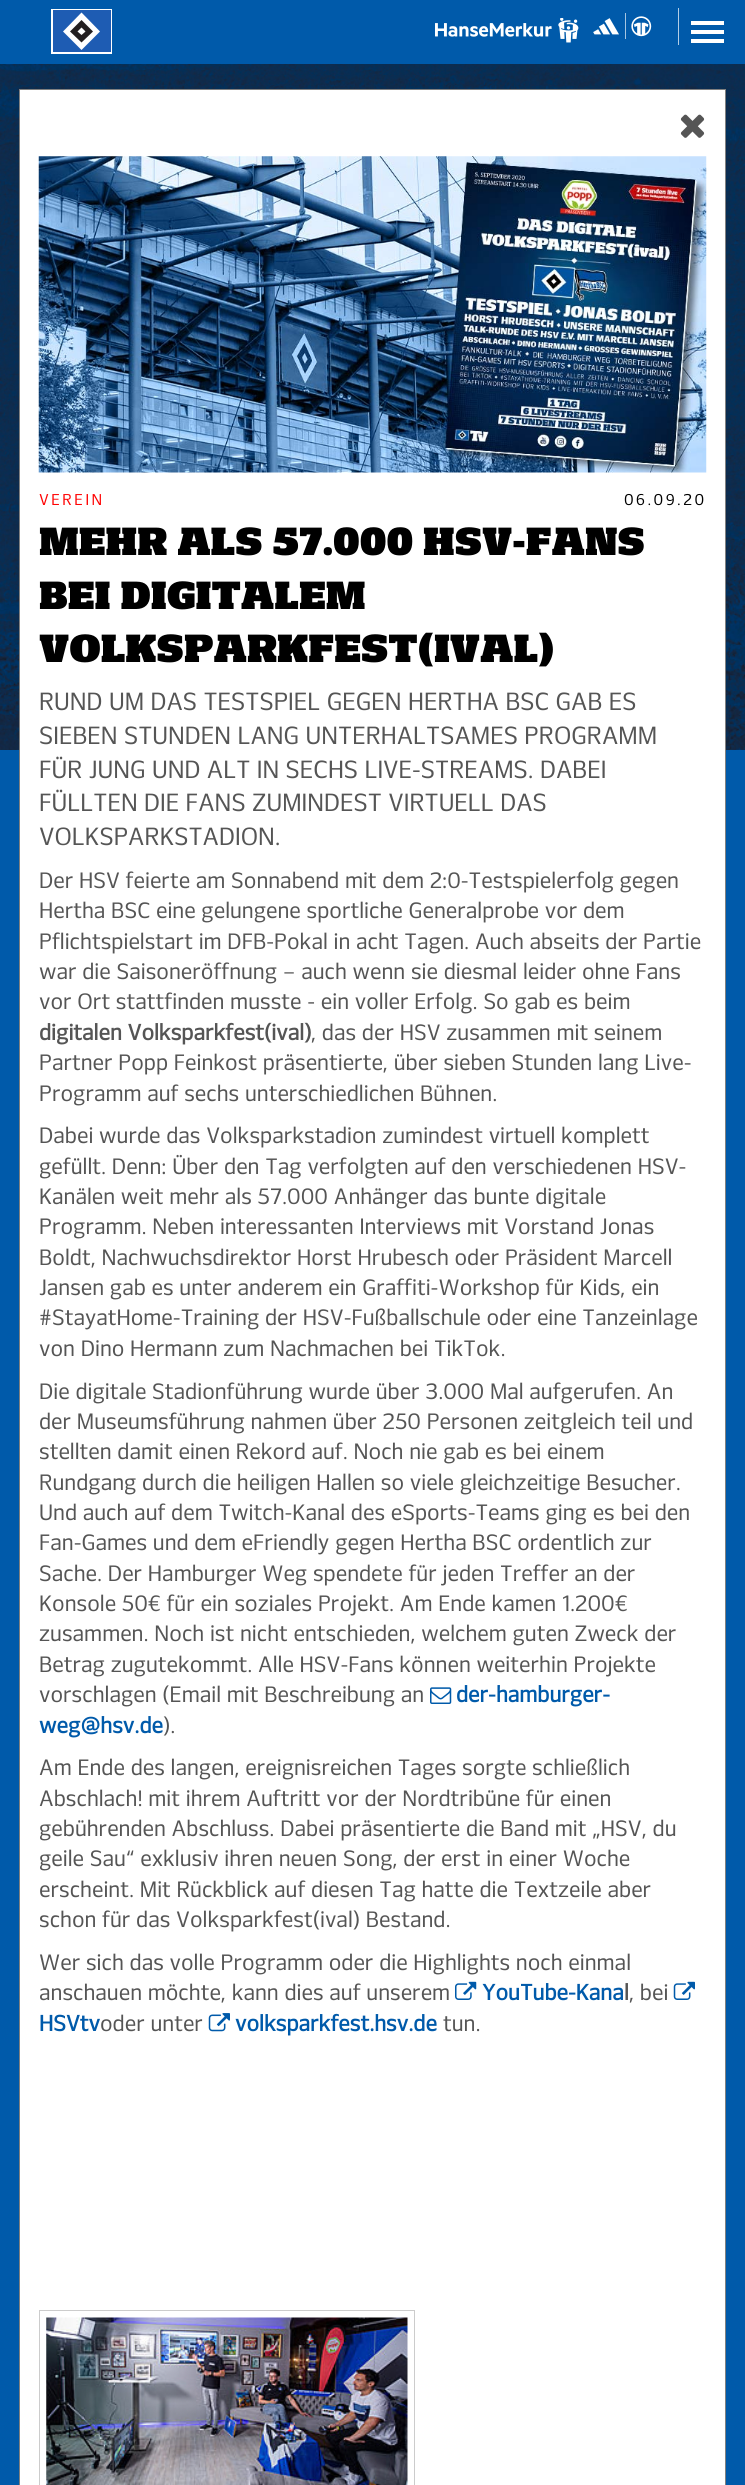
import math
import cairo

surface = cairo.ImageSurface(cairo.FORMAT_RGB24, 745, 2485)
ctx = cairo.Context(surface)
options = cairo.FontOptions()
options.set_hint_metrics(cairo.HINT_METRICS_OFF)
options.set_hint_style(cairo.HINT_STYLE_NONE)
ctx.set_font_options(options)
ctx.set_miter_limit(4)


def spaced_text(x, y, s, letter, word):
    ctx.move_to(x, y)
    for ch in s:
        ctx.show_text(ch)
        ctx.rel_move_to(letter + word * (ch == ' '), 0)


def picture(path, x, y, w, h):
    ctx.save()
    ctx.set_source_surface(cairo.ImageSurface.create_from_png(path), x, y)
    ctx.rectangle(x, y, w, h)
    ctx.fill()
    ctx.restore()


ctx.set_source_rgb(0, 0.353, 0.667)
ctx.paint()
picture("img1.png", 0, 64, 745, 686)
ctx.set_source_rgb(1, 1, 1)
ctx.rectangle(51, 9, 61, 45)
ctx.fill()
ctx.set_source_rgb(0.118, 0.361, 0.702)
ctx.rectangle(53, 10, 58, 42)
ctx.fill()
ctx.set_source_rgb(1, 1, 1)
ctx.new_path()
ctx.move_to(100, 31.5)
ctx.line_to(81.5, 12.5)
ctx.line_to(63, 31.5)
ctx.line_to(81.5, 50)
ctx.close_path()
ctx.fill()
ctx.set_source_rgb(0.137, 0.122, 0.125)
ctx.new_path()
ctx.move_to(93, 31.5)
ctx.line_to(81.5, 20)
ctx.line_to(70, 31.5)
ctx.line_to(81.5, 42.5)
ctx.close_path()
ctx.fill()
ctx.set_source_rgb(1, 1, 1)
ctx.new_path()
ctx.move_to(85.5, 31.5)
ctx.line_to(81.5, 27.5)
ctx.line_to(77.5, 31.5)
ctx.line_to(81.5, 35)
ctx.close_path()
ctx.fill()
picture("img2.png", 435, 18, 144, 25)
ctx.set_source_rgb(0.702, 0.808, 0.902)
ctx.rectangle(678, 8, 1, 37)
ctx.fill()
picture("img3.png", 593, 13, 59, 26)
ctx.set_source_rgb(1, 1, 1)
ctx.rectangle(691, 21, 33, 4)
ctx.fill()
ctx.rectangle(691, 30, 33, 4)
ctx.fill()
ctx.rectangle(691, 39, 33, 4)
ctx.fill()
ctx.rectangle(19.5, 89.5, 706, 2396)
ctx.fill_preserve()
ctx.set_source_rgb(0.502, 0.502, 0.502)
ctx.set_line_width(1)
ctx.stroke()
picture("img4.png", 680, 114, 25, 24)
picture("img5.png", 38, 156, 669, 317)
ctx.select_font_face("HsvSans")
ctx.set_font_size(15)
ctx.set_source_rgb(1, 0.008, 0.008)
spaced_text(39, 505, "VEREIN", 2.5, 0)
ctx.set_source_rgb(0, 0, 0)
spaced_text(624, 505, "06.09.20", 2.5, 0)
ctx.select_font_face("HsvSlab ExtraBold")
ctx.set_font_size(37.5)
ctx.move_to(39, 555)
ctx.show_text("MEHR ALS 57.000 HSV-FANS")
ctx.move_to(39, 609)
ctx.show_text("BEI DIGITALEM")
ctx.move_to(39, 662)
ctx.show_text("VOLKSPARKFEST(IVAL)")
ctx.select_font_face("HsvSans")
ctx.set_font_size(23.75)
ctx.set_source_rgb(0.333, 0.333, 0.333)
ctx.move_to(39, 710)
ctx.show_text("RUND UM DAS TESTSPIEL GEGEN HERTHA BSC GAB ES")
ctx.move_to(39, 744)
ctx.show_text("SIEBEN STUNDEN LANG UNTERHALTSAMES PROGRAMM")
ctx.move_to(39, 778)
ctx.show_text("FÜR JUNG UND ALT IN SECHS LIVE-STREAMS. DABEI")
ctx.move_to(39, 811)
ctx.show_text("FÜLLTEN DIE FANS ZUMINDEST VIRTUELL DAS")
ctx.move_to(39, 845)
ctx.show_text("VOLKSPARKSTADION.")
ctx.set_font_size(21.25)
ctx.move_to(39, 888)
ctx.show_text("Der HSV feierte am Sonnabend mit dem 2:0-Testspielerfolg gegen")
ctx.move_to(39, 918)
ctx.show_text("Hertha BSC eine gelungene sportliche Generalprobe vor dem")
ctx.move_to(39, 949)
ctx.show_text("Pflichtspielstart im DFB-Pokal in acht Tagen. Auch abseits der Partie")
ctx.move_to(39, 979)
ctx.show_text("war die Saisoneröffnung – auch wenn sie diesmal leider ohne Fans")
ctx.move_to(39, 1009)
ctx.show_text("vor Ort stattfinden musste - ein voller Erfolg. So gab es beim")
ctx.select_font_face("HsvSans", cairo.FONT_SLANT_NORMAL, cairo.FONT_WEIGHT_BOLD)
ctx.move_to(39, 1040)
ctx.show_text("digitalen Volksparkfest(ival)")
ctx.select_font_face("HsvSans")
ctx.move_to(311, 1040)
ctx.show_text(", das der HSV zusammen mit seinem")
ctx.move_to(39, 1070)
ctx.show_text("Partner Popp Feinkost präsentierte, über sieben Stunden lang Live-")
ctx.move_to(39, 1101)
ctx.show_text("Programm auf sechs unterschiedlichen Bühnen.")
ctx.move_to(39, 1143)
ctx.show_text("Dabei wurde das Volksparkstadion zumindest virtuell komplett")
ctx.move_to(39, 1174)
ctx.show_text("gefüllt. Denn: Über den Tag verfolgten auf den verschiedenen HSV-")
ctx.move_to(39, 1204)
ctx.show_text("Kanälen weit mehr als 57.000 Anhänger das bunte digitale")
ctx.move_to(39, 1234)
ctx.show_text("Programm. Neben interessanten Interviews mit Vorstand Jonas")
ctx.move_to(39, 1265)
ctx.show_text("Boldt, Nachwuchsdirektor Horst Hrubesch oder Präsident Marcell")
ctx.move_to(39, 1295)
ctx.show_text("Jansen gab es unter anderem ein Graffiti-Workshop für Kids, ein")
ctx.move_to(39, 1325)
ctx.show_text("#StayatHome-Training der HSV-Fußballschule oder eine Tanzeinlage")
ctx.move_to(39, 1356)
ctx.show_text("von Dino Hermann zum Nachmachen bei TikTok.")
ctx.move_to(39, 1399)
ctx.show_text("Die digitale Stadionführung wurde über 3.000 Mal aufgerufen. An")
ctx.move_to(39, 1429)
ctx.show_text("der Museumsführung nahmen über 250 Personen zeitgleich teil und")
ctx.move_to(39, 1459)
ctx.show_text("stellten damit einen Rekord auf. Noch nie gab es bei einem")
ctx.move_to(39, 1490)
ctx.show_text("Rundgang durch die heiligen Hallen so viele gleichzeitige Besucher.")
ctx.move_to(39, 1520)
ctx.show_text("Und auch auf dem Twitch-Kanal des eSports-Teams ging es bei den")
ctx.move_to(39, 1550)
ctx.show_text("Fan-Games und dem eFriendly gegen Hertha BSC ordentlich zur")
ctx.move_to(39, 1581)
ctx.show_text("Sache. Der Hamburger Weg spendete für jeden Treffer an der")
ctx.move_to(39, 1611)
ctx.show_text("Konsole 50€ für ein soziales Projekt. Am Ende kamen 1.200€")
ctx.move_to(39, 1641)
ctx.show_text("zusammen. Noch ist nicht entschieden, welchem guten Zweck der")
ctx.move_to(39, 1672)
ctx.show_text("Betrag zugutekommt. Alle HSV-Fans können weiterhin Projekte")
ctx.move_to(39, 1702)
ctx.show_text("vorschlagen (Email mit Beschreibung an")
picture("img6.png", 430, 1687, 22, 17)
ctx.select_font_face("HsvSans", cairo.FONT_SLANT_NORMAL, cairo.FONT_WEIGHT_BOLD)
ctx.set_source_rgb(0, 0.353, 0.667)
ctx.move_to(456, 1702)
ctx.show_text("der-hamburger-")
ctx.move_to(39, 1733)
ctx.show_text("weg@hsv.de")
ctx.select_font_face("HsvSans")
ctx.set_source_rgb(0.333, 0.333, 0.333)
ctx.move_to(163, 1733)
ctx.show_text(").")
ctx.move_to(39, 1775)
ctx.show_text("Am Ende des langen, ereignisreichen Tages sorgte schließlich")
ctx.move_to(39, 1806)
ctx.show_text("Abschlach! mit ihrem Auftritt vor der Nordtribüne für einen")
ctx.move_to(39, 1836)
ctx.show_text("gebührenden Abschluss. Dabei präsentierte die Band mit „HSV, du")
ctx.move_to(39, 1866)
ctx.show_text("geile Sau“ exklusiv ihren neuen Song, der erst in einer Woche")
ctx.move_to(39, 1897)
ctx.show_text("erscheint. Mit Rückblick auf diesen Tag hatte die Textzeile aber")
ctx.move_to(39, 1927)
ctx.show_text("schon für das Volksparkfest(ival) Bestand.")
ctx.move_to(39, 1970)
ctx.show_text("Wer sich das volle Programm oder die Highlights noch einmal")
ctx.move_to(39, 2000)
ctx.show_text("anschauen möchte, kann dies auf unserem")
picture("img7.png", 455, 1981, 22, 19)
ctx.select_font_face("HsvSans", cairo.FONT_SLANT_NORMAL, cairo.FONT_WEIGHT_BOLD)
ctx.set_source_rgb(0, 0.353, 0.667)
ctx.move_to(482, 2000)
ctx.show_text("YouTube-Kana")
ctx.set_source_rgb(0.333, 0.333, 0.333)
ctx.move_to(624, 2000)
ctx.show_text("l")
ctx.select_font_face("HsvSans")
ctx.move_to(629, 2000)
ctx.show_text(", bei")
picture("img8.png", 673, 1981, 22, 19)
ctx.select_font_face("HsvSans", cairo.FONT_SLANT_NORMAL, cairo.FONT_WEIGHT_BOLD)
ctx.set_source_rgb(0, 0.353, 0.667)
ctx.move_to(39, 2031)
ctx.show_text("HSVtv")
ctx.select_font_face("HsvSans")
ctx.set_source_rgb(0.333, 0.333, 0.333)
ctx.move_to(100, 2031)
ctx.show_text("oder unter")
picture("img9.png", 208, 2013, 22, 19)
ctx.select_font_face("HsvSans", cairo.FONT_SLANT_NORMAL, cairo.FONT_WEIGHT_BOLD)
ctx.set_source_rgb(0, 0.353, 0.667)
ctx.move_to(235, 2031)
ctx.show_text("volksparkfest.hsv.de")
ctx.select_font_face("HsvSans")
ctx.set_source_rgb(0.333, 0.333, 0.333)
ctx.move_to(443, 2031)
ctx.show_text("tun.")
ctx.rectangle(39.5, 2310.5, 375, 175)
ctx.set_source_rgb(0.8, 0.8, 0.8)
ctx.stroke()
picture("img10.png", 46, 2317, 362, 168)
surface.write_to_png("page.png")
